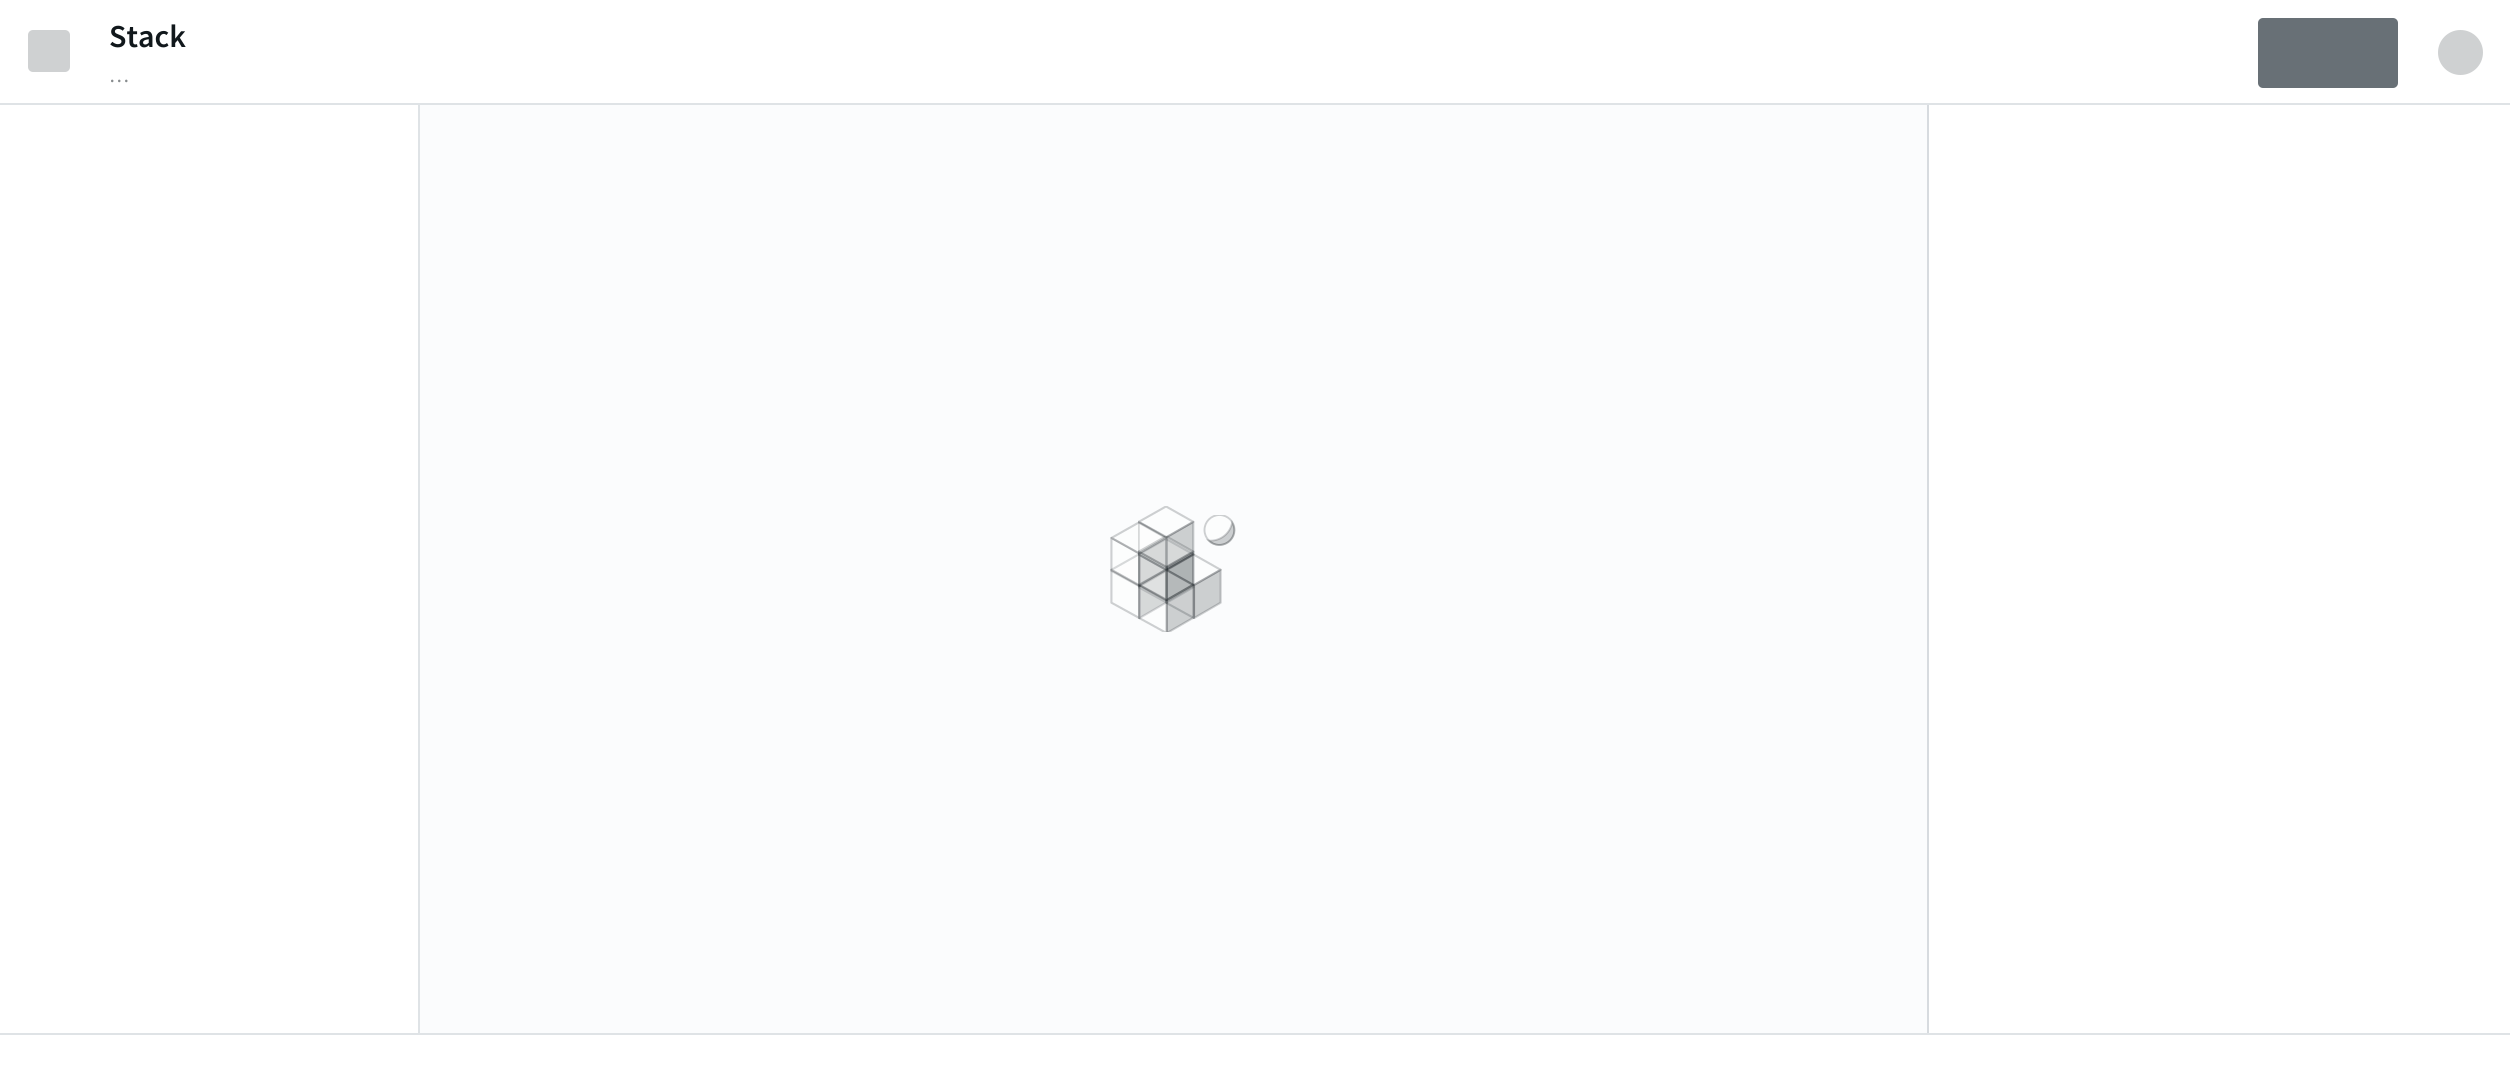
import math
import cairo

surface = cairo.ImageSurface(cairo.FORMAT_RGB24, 2510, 1084)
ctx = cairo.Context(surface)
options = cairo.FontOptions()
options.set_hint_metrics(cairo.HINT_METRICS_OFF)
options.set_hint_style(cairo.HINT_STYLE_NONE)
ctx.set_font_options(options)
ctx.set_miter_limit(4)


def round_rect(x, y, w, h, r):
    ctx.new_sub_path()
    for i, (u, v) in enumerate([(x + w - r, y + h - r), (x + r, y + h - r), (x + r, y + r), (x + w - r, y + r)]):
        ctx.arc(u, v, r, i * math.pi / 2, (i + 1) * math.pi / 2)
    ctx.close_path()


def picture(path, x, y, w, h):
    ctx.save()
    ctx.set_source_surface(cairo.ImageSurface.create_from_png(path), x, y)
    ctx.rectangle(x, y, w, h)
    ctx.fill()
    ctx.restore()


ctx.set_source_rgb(0.984, 0.988, 0.992)
ctx.paint()
ctx.set_source_rgb(1, 1, 1)
ctx.rectangle(0, 0, 2510, 103)
ctx.fill()
ctx.set_source_rgb(0.875, 0.89, 0.902)
ctx.rectangle(0, 103, 2510, 2)
ctx.fill()
ctx.set_source_rgb(0.812, 0.82, 0.824)
round_rect(28, 30, 42, 42, 5)
ctx.fill()
ctx.select_font_face("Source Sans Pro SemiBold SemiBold")
ctx.set_font_size(32)
ctx.set_source_rgb(0.067, 0.094, 0.11)
ctx.move_to(109, 47)
ctx.show_text("Stack")
ctx.select_font_face("Source Sans Pro")
ctx.set_font_size(21)
ctx.set_source_rgb(0.533, 0.549, 0.557)
ctx.move_to(109, 82)
ctx.show_text("…")
ctx.set_source_rgb(0.408, 0.439, 0.463)
round_rect(2258, 18, 140, 70, 5)
ctx.fill()
ctx.set_source_rgb(0.812, 0.82, 0.824)
ctx.arc(2460.5, 52.5, 22.5, 0, 2 * math.pi)
ctx.fill()
ctx.set_source_rgb(1, 1, 1)
ctx.rectangle(0, 105, 418, 928)
ctx.fill()
ctx.set_source_rgb(0.875, 0.89, 0.902)
ctx.rectangle(418, 105, 2, 928)
ctx.fill()
picture("img5.png", 1138, 538, 57, 66)
picture("img1.png", 1138, 506, 57, 66)
picture("img2.png", 1203, 515, 33, 31)
picture("img6.png", 1110, 553, 57, 67)
picture("img7.png", 1165, 553, 57, 66)
picture("img8.png", 1138, 569, 57, 63)
picture("img3.png", 1110, 522, 57, 66)
picture("img4.png", 1138, 536, 57, 65)
ctx.set_source_rgb(1, 1, 1)
ctx.rectangle(1929, 105, 581, 928)
ctx.fill()
ctx.set_source_rgb(0.843, 0.859, 0.875)
ctx.rectangle(1927, 105, 2, 928)
ctx.fill()
ctx.set_source_rgb(1, 1, 1)
ctx.rectangle(0, 1035, 2510, 49)
ctx.fill()
ctx.set_source_rgb(0.875, 0.89, 0.902)
ctx.rectangle(0, 1033, 2510, 2)
ctx.fill()
surface.write_to_png("page.png")
